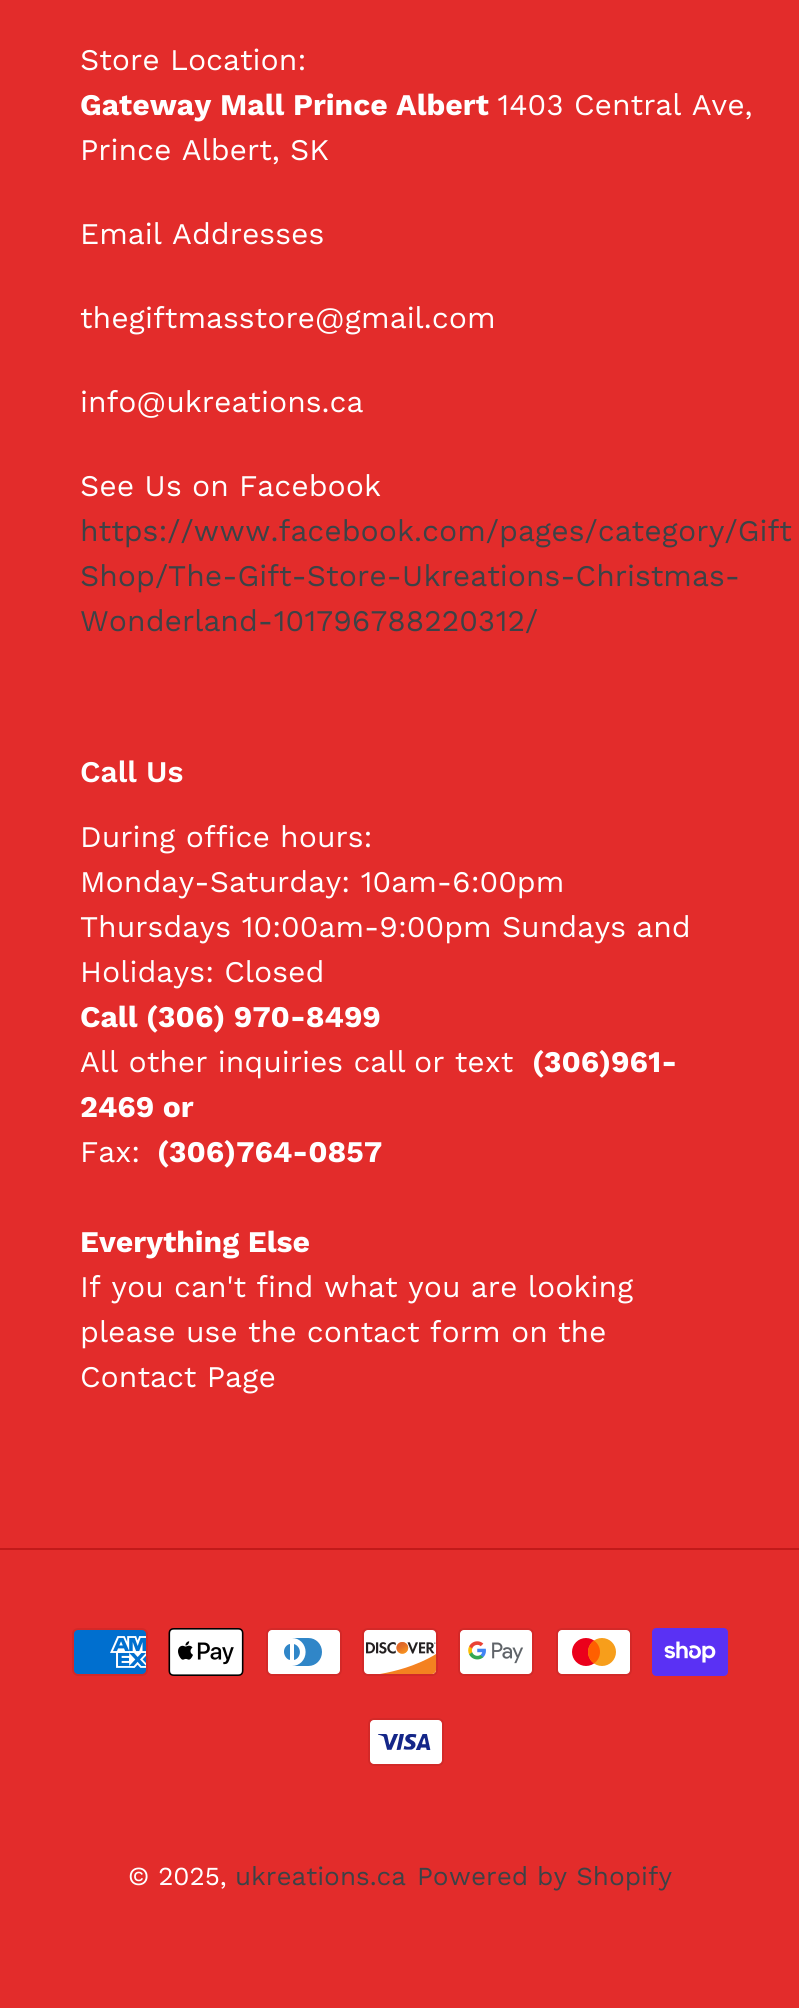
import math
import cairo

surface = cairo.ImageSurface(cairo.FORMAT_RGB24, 799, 2008)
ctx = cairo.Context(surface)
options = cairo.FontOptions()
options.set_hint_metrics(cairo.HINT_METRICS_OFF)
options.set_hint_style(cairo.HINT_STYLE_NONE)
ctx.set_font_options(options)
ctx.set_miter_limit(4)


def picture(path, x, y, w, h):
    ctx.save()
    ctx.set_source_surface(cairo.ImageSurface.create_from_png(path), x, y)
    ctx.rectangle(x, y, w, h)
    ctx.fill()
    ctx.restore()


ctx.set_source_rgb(0.89, 0.173, 0.169)
ctx.paint()
ctx.select_font_face("Work Sans")
ctx.set_font_size(30)
ctx.set_source_rgb(1, 1, 1)
ctx.move_to(80, 70)
ctx.show_text("Store Location:")
ctx.select_font_face("Work Sans", cairo.FONT_SLANT_NORMAL, cairo.FONT_WEIGHT_BOLD)
ctx.move_to(80, 115)
ctx.show_text("Gateway Mall Prince Albert")
ctx.select_font_face("Work Sans")
ctx.move_to(497, 115)
ctx.show_text("1403 Central Ave,")
ctx.move_to(80, 160)
ctx.show_text("Prince Albert, SK")
ctx.move_to(80, 244)
ctx.show_text("Email Addresses")
ctx.move_to(80, 328)
ctx.show_text("thegiftmasstore@gmail.com")
ctx.move_to(80, 412)
ctx.show_text("info@ukreations.ca")
ctx.move_to(80, 496)
ctx.show_text("See Us on Facebook")
ctx.set_source_rgb(0.239, 0.259, 0.275)
ctx.move_to(80, 541)
ctx.show_text("https://www.facebook.com/pages/category/Gift")
ctx.move_to(80, 586)
ctx.show_text("Shop/The-Gift-Store-Ukreations-Christmas-")
ctx.move_to(80, 631)
ctx.show_text("Wonderland-101796788220312/")
ctx.select_font_face("Work Sans SemiBold")
ctx.set_source_rgb(1, 1, 1)
ctx.move_to(80, 782)
ctx.show_text("Call Us")
ctx.select_font_face("Work Sans")
ctx.move_to(80, 847)
ctx.show_text("During office hours:")
ctx.move_to(80, 892)
ctx.show_text("Monday-Saturday: 10am-6:00pm")
ctx.move_to(80, 937)
ctx.show_text("Thursdays 10:00am-9:00pm Sundays and")
ctx.move_to(80, 982)
ctx.show_text("Holidays: Closed")
ctx.select_font_face("Work Sans", cairo.FONT_SLANT_NORMAL, cairo.FONT_WEIGHT_BOLD)
ctx.move_to(80, 1027)
ctx.show_text("Call (306) 970-8499")
ctx.select_font_face("Work Sans")
ctx.move_to(80, 1072)
ctx.show_text("All other inquiries call")
ctx.move_to(414, 1072)
ctx.show_text("or text")
ctx.select_font_face("Work Sans", cairo.FONT_SLANT_NORMAL, cairo.FONT_WEIGHT_BOLD)
ctx.move_to(532, 1072)
ctx.show_text("(306)961-")
ctx.move_to(80, 1117)
ctx.show_text("2469 or")
ctx.select_font_face("Work Sans")
ctx.move_to(80, 1162)
ctx.show_text("Fax:")
ctx.select_font_face("Work Sans", cairo.FONT_SLANT_NORMAL, cairo.FONT_WEIGHT_BOLD)
ctx.move_to(157, 1162)
ctx.show_text("(306)764-0857")
ctx.move_to(80, 1252)
ctx.show_text("Everything Else")
ctx.select_font_face("Work Sans")
ctx.move_to(80, 1297)
ctx.show_text("If you can't find what you are looking")
ctx.move_to(80, 1342)
ctx.show_text("please use the contact form on the")
ctx.move_to(80, 1387)
ctx.show_text("Contact Page")
ctx.set_source_rgb(0.757, 0.102, 0.102)
ctx.rectangle(0, 1548, 799, 2)
ctx.fill()
picture("img1.png", 72, 1628, 76, 48)
picture("img2.png", 168, 1628, 76, 48)
picture("img3.png", 266, 1628, 76, 48)
picture("img4.png", 362, 1628, 76, 48)
picture("img5.png", 458, 1628, 76, 48)
picture("img6.png", 556, 1628, 76, 48)
picture("img7.png", 652, 1628, 76, 48)
picture("img8.png", 368, 1718, 76, 48)
ctx.set_font_size(26)
ctx.set_source_rgb(1, 1, 1)
ctx.move_to(128, 1885)
ctx.show_text("© 2025,")
ctx.set_source_rgb(0.239, 0.259, 0.275)
ctx.move_to(235, 1885)
ctx.show_text("ukreations.ca")
ctx.move_to(417, 1885)
ctx.show_text("Powered by Shopify")
surface.write_to_png("page.png")
